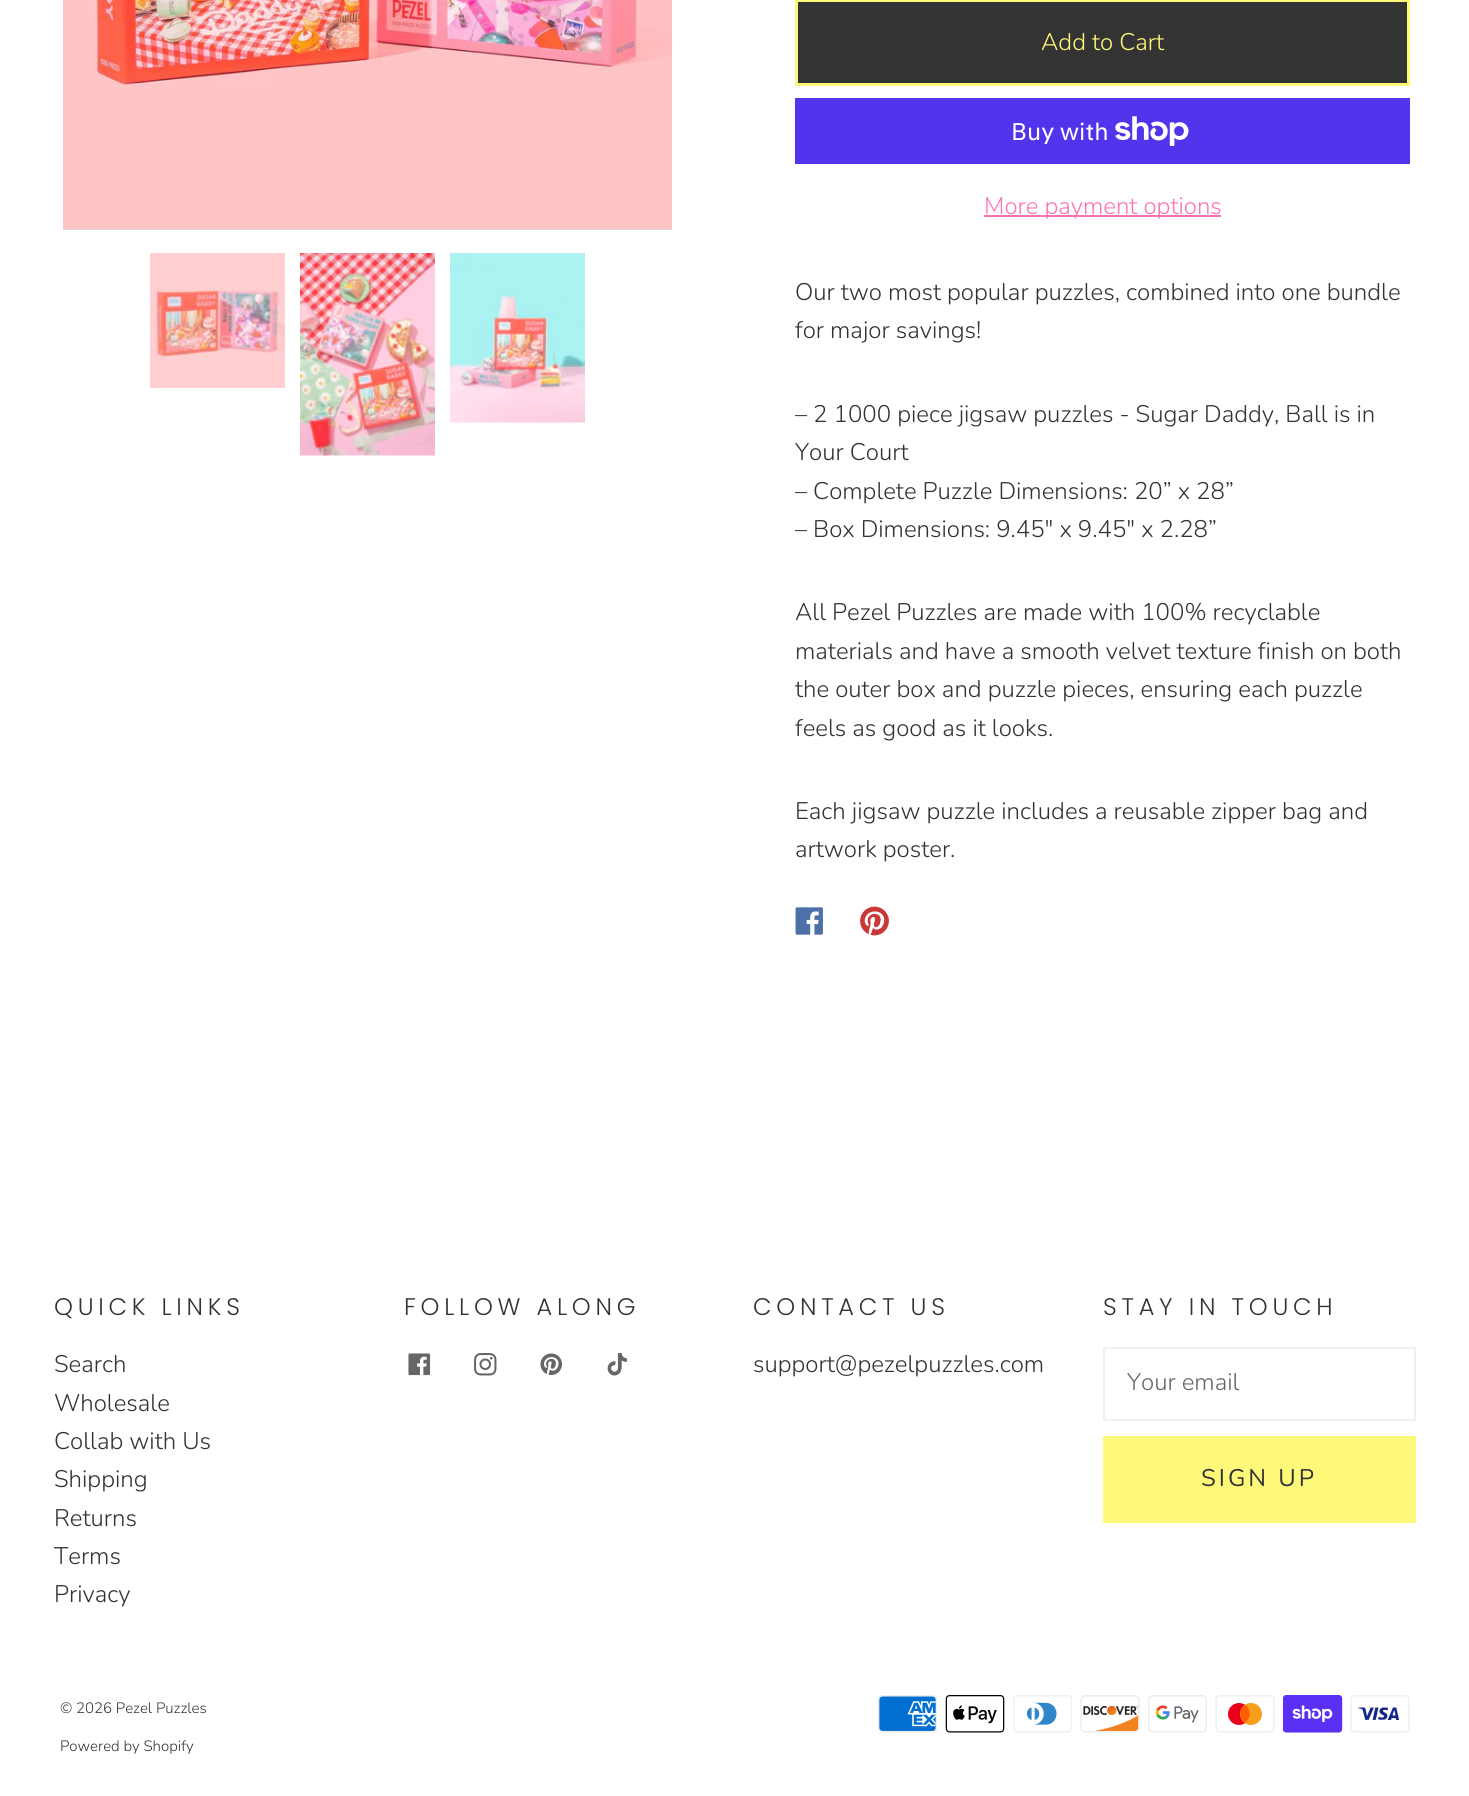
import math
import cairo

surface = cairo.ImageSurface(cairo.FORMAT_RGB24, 1469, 1796)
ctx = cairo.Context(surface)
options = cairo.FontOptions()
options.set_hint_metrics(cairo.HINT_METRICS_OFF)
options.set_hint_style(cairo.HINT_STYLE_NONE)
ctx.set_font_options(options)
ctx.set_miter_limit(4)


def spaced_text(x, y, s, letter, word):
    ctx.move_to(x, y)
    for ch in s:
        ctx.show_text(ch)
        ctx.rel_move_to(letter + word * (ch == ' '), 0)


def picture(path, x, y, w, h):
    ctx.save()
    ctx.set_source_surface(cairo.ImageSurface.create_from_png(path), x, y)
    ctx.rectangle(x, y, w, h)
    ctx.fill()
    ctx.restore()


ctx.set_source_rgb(1, 1, 1)
ctx.paint()
ctx.set_source_rgb(0.843, 0.843, 0.843)
ctx.rectangle(63, 229, 609, 1)
ctx.fill()
picture("img1.png", 63, 0, 609, 229)
picture("img2.png", 150, 253, 135, 135)
picture("img3.png", 300, 253, 135, 203)
picture("img4.png", 450, 253, 135, 170)
ctx.set_source_rgb(0.2, 0.2, 0.2)
ctx.rectangle(796.5, 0.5, 612, 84)
ctx.fill_preserve()
ctx.set_source_rgb(1, 0.973, 0.475)
ctx.set_line_width(3)
ctx.stroke()
ctx.select_font_face("Nunito Light")
ctx.set_font_size(24)
ctx.move_to(1041, 50)
ctx.show_text("Add to Cart")
ctx.set_source_rgb(0.329, 0.2, 0.922)
ctx.rectangle(795, 98, 615, 66)
ctx.fill()
ctx.select_font_face("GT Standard")
ctx.set_source_rgb(1, 1, 1)
ctx.move_to(1011, 140)
ctx.show_text("Buy with")
picture("img5.png", 1115, 116, 74, 30)
ctx.set_source_rgb(1, 0.451, 0.702)
ctx.rectangle(984, 215, 237, 2)
ctx.fill()
ctx.select_font_face("Nunito Light")
ctx.move_to(984, 214)
ctx.show_text("More payment options")
ctx.set_source_rgb(0.2, 0.2, 0.2)
ctx.move_to(795, 300)
ctx.show_text("Our two most popular puzzles, combined into one bundle")
ctx.move_to(795, 338)
ctx.show_text("for major savings!")
ctx.move_to(795, 422)
ctx.show_text("– 2 1000 piece jigsaw puzzles - Sugar Daddy, Ball is in")
ctx.move_to(795, 460)
ctx.show_text("Your Court")
ctx.move_to(795, 499)
ctx.show_text("– Complete Puzzle Dimensions: 20” x 28”")
ctx.move_to(795, 537)
ctx.show_text("– Box Dimensions: 9.45\" x 9.45\" x 2.28”")
ctx.move_to(795, 620)
ctx.show_text("All Pezel Puzzles are made with 100% recyclable")
ctx.move_to(795, 659)
ctx.show_text("materials and have a smooth velvet texture finish on both")
ctx.move_to(795, 697)
ctx.show_text("the outer box and puzzle pieces, ensuring each puzzle")
ctx.move_to(795, 736)
ctx.show_text("feels as good as it looks.")
ctx.move_to(795, 819)
ctx.show_text("Each jigsaw puzzle includes a reusable zipper bag and")
ctx.move_to(795, 857)
ctx.show_text("artwork poster.")
picture("img6.png", 795, 907, 28, 28)
picture("img7.png", 860, 906, 29, 30)
ctx.select_font_face("Poppins Light")
spaced_text(54, 1315, "QUICK LINKS", 4.75, 0)
ctx.select_font_face("Nunito Light")
ctx.move_to(54, 1372)
ctx.show_text("Search")
ctx.move_to(54, 1411)
ctx.show_text("Wholesale")
ctx.move_to(54, 1449)
ctx.show_text("Collab with Us")
ctx.move_to(54, 1487)
ctx.show_text("Shipping")
ctx.move_to(54, 1526)
ctx.show_text("Returns")
ctx.move_to(54, 1564)
ctx.show_text("Terms")
ctx.move_to(54, 1602)
ctx.show_text("Privacy")
ctx.select_font_face("Poppins Light")
spaced_text(404, 1315, "FOLLOW ALONG", 4.75, 0)
picture("img8.png", 408, 1353, 23, 23)
picture("img9.png", 474, 1353, 23, 23)
picture("img10.png", 540, 1353, 22, 23)
picture("img11.png", 607, 1353, 20, 23)
spaced_text(753, 1315, "CONTACT US", 4.75, 0)
ctx.select_font_face("Nunito Light")
ctx.move_to(753, 1372)
ctx.show_text("support@pezelpuzzles.com")
ctx.select_font_face("Poppins Light")
spaced_text(1103, 1315, "STAY IN TOUCH", 4.75, 0)
ctx.rectangle(1104, 1348, 311, 72)
ctx.set_source_rgb(0.941, 0.941, 0.941)
ctx.set_line_width(2)
ctx.stroke()
ctx.select_font_face("Nunito Light")
ctx.set_source_rgb(0.4, 0.4, 0.4)
ctx.move_to(1127, 1390)
ctx.show_text("Your email")
ctx.set_source_rgb(1, 0.973, 0.475)
ctx.rectangle(1103, 1436, 313, 87)
ctx.fill()
ctx.select_font_face("Nunito")
ctx.set_source_rgb(0.2, 0.2, 0.2)
spaced_text(1201, 1486, "SIGN UP", 3, 0)
ctx.select_font_face("Nunito Light")
ctx.set_font_size(15)
ctx.move_to(60, 1713)
ctx.show_text("© 2026 Pezel Puzzles")
ctx.move_to(60, 1751)
ctx.show_text("Powered by Shopify")
picture("img12.png", 878, 1695, 59, 38)
picture("img13.png", 945, 1695, 60, 38)
picture("img14.png", 1013, 1695, 59, 38)
picture("img15.png", 1080, 1695, 60, 38)
picture("img16.png", 1148, 1695, 59, 38)
picture("img17.png", 1215, 1695, 60, 38)
picture("img18.png", 1283, 1695, 60, 38)
picture("img19.png", 1350, 1695, 60, 38)
surface.write_to_png("page.png")
